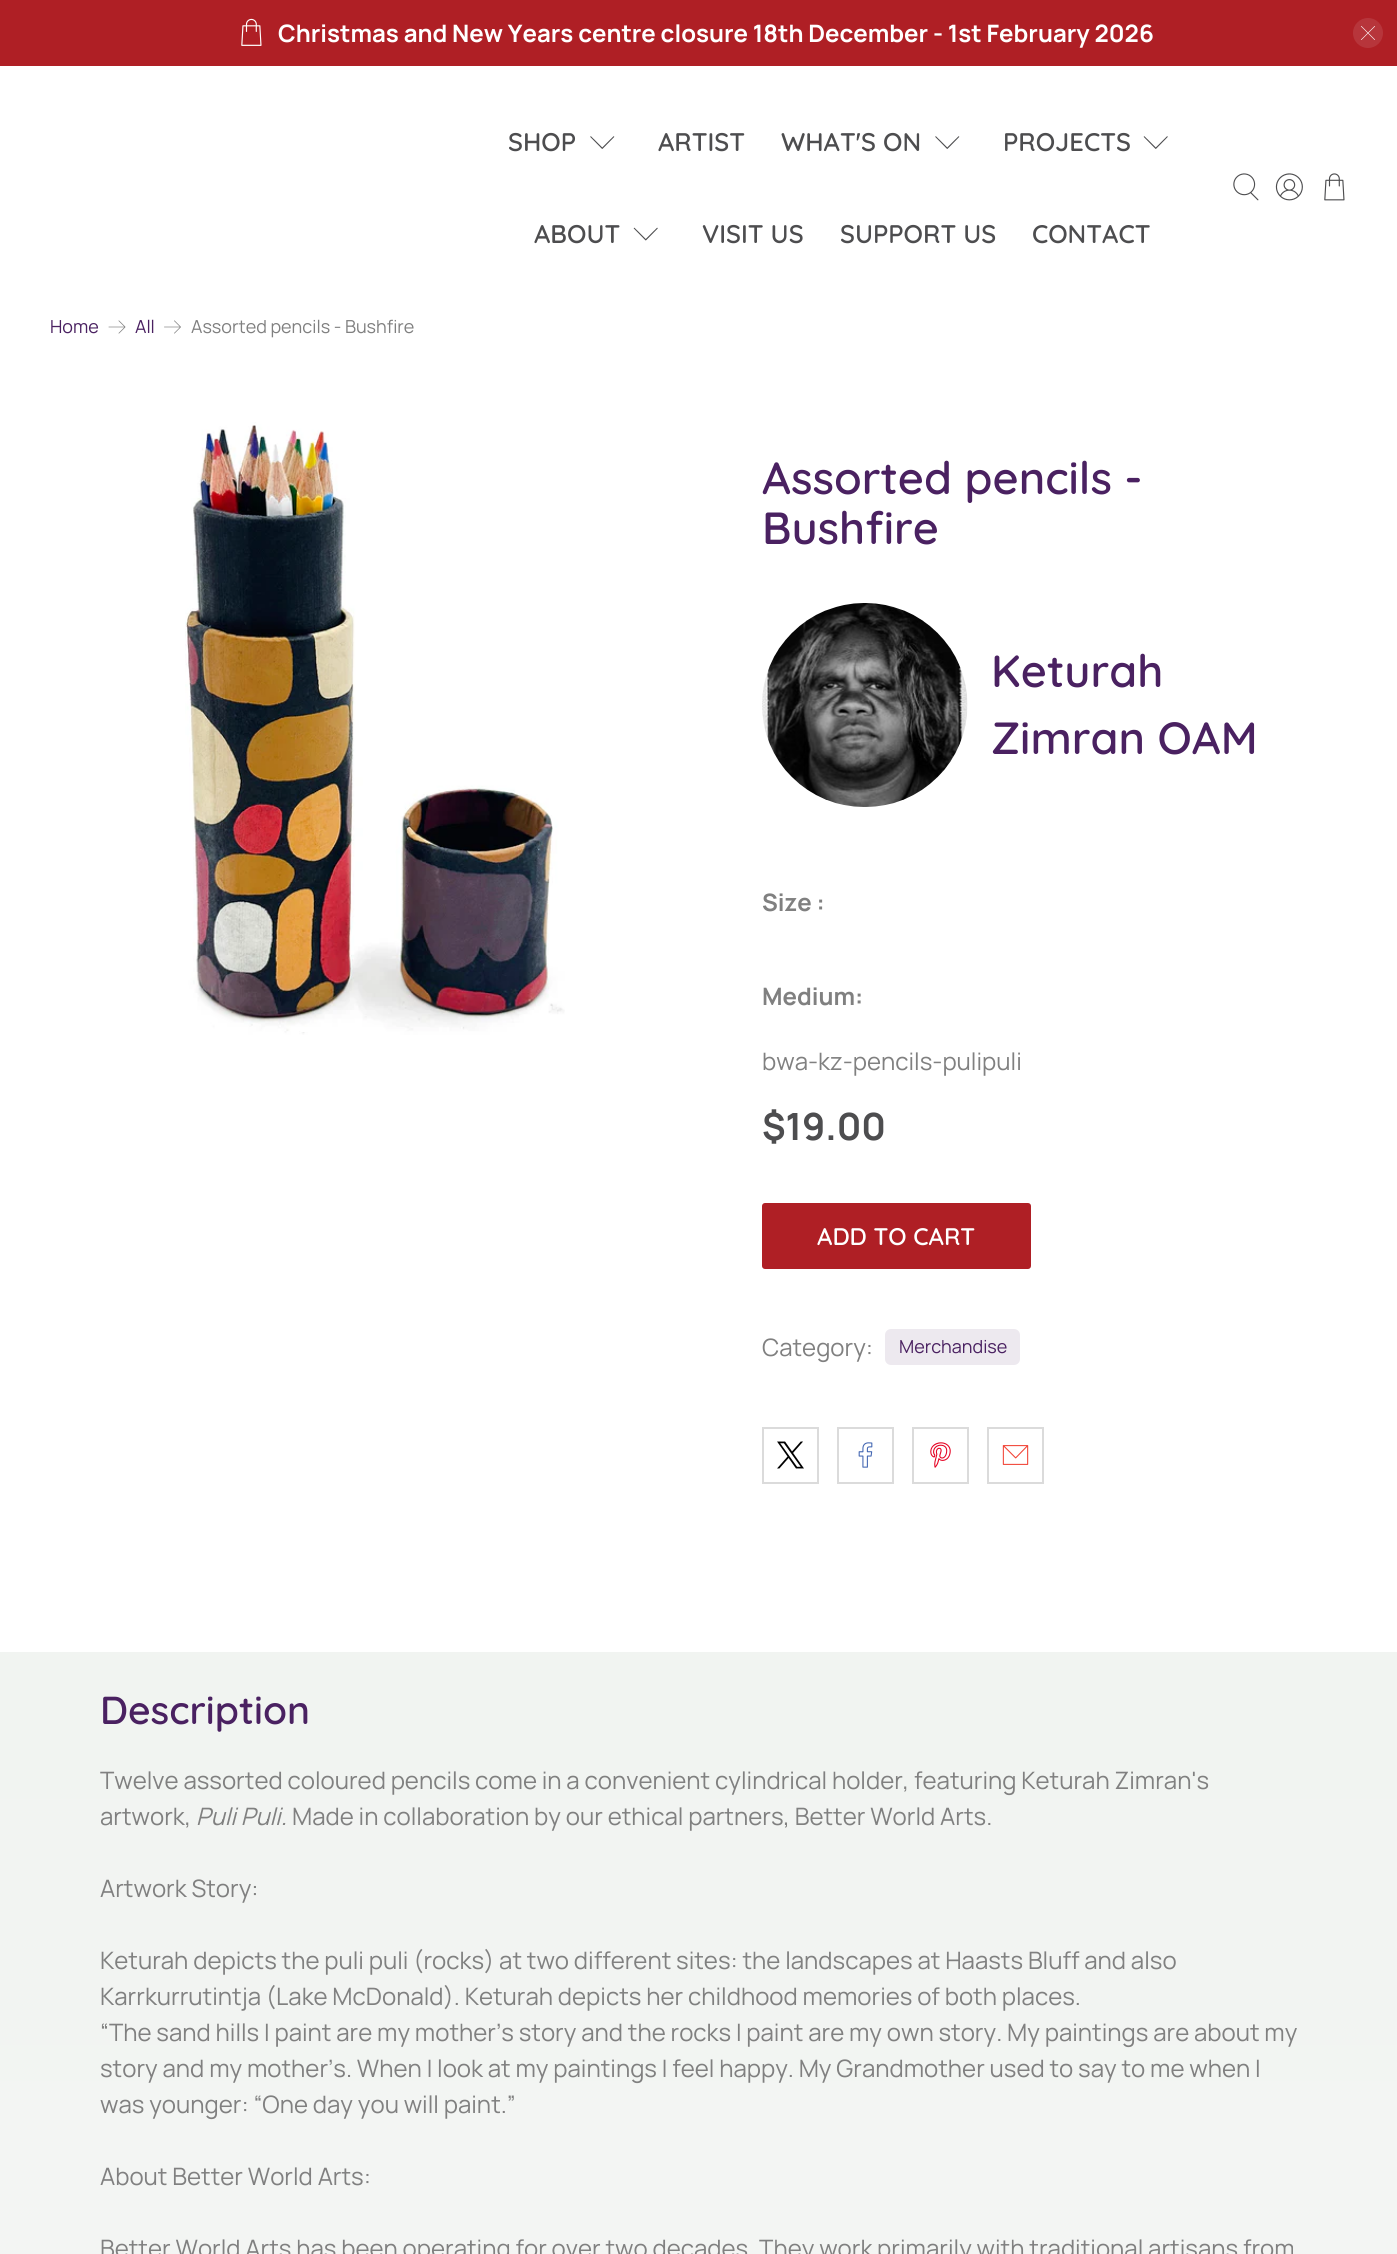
import math
import cairo

surface = cairo.ImageSurface(cairo.FORMAT_RGB24, 1397, 2254)
ctx = cairo.Context(surface)
options = cairo.FontOptions()
options.set_hint_metrics(cairo.HINT_METRICS_OFF)
options.set_hint_style(cairo.HINT_STYLE_NONE)
ctx.set_font_options(options)
ctx.set_miter_limit(4)


def round_rect(x, y, w, h, r):
    ctx.new_sub_path()
    for i, (u, v) in enumerate([(x + w - r, y + h - r), (x + r, y + h - r), (x + r, y + r), (x + w - r, y + r)]):
        ctx.arc(u, v, r, i * math.pi / 2, (i + 1) * math.pi / 2)
    ctx.close_path()


def picture(path, x, y, w, h):
    ctx.save()
    ctx.set_source_surface(cairo.ImageSurface.create_from_png(path), x, y)
    ctx.rectangle(x, y, w, h)
    ctx.fill()
    ctx.restore()


ctx.set_source_rgb(1, 1, 1)
ctx.paint()
ctx.set_source_rgb(0.686, 0.122, 0.145)
ctx.rectangle(0, 0, 1397, 66)
ctx.fill()
picture("img1.png", 241, 18, 21, 28)
ctx.select_font_face("Manrope", cairo.FONT_SLANT_NORMAL, cairo.FONT_WEIGHT_BOLD)
ctx.set_font_size(24)
ctx.set_source_rgb(1, 1, 1)
ctx.move_to(278, 42)
ctx.show_text("Christmas and New Years centre closure 18th December - 1st February 2026")
ctx.set_source_rgb(0.718, 0.208, 0.231)
ctx.new_path()
ctx.arc(1368, 33, 15, 0, 2 * math.pi)
ctx.fill()
picture("img2.png", 1361, 26, 14, 14)
ctx.select_font_face("Quicksand SemiBold")
ctx.set_font_size(25.5)
ctx.set_source_rgb(0.302, 0.302, 0.31)
ctx.move_to(508, 151)
ctx.show_text("SHOP")
picture("img3.png", 590, 136, 25, 13)
ctx.move_to(658, 151)
ctx.show_text("ARTIST")
ctx.move_to(781, 151)
ctx.show_text("WHAT'S ON")
picture("img3.png", 935, 136, 25, 13)
ctx.move_to(1003, 151)
ctx.show_text("PROJECTS")
picture("img4.png", 1143, 136, 25, 13)
ctx.move_to(534, 243)
ctx.show_text("ABOUT")
picture("img5.png", 633, 227, 25, 14)
ctx.move_to(702, 243)
ctx.show_text("VISIT US")
ctx.move_to(840, 243)
ctx.show_text("SUPPORT US")
ctx.move_to(1032, 243)
ctx.show_text("CONTACT")
picture("img6.png", 1233, 173, 26, 28)
picture("img7.png", 1275, 173, 28, 28)
picture("img8.png", 1324, 173, 21, 28)
ctx.select_font_face("Manrope")
ctx.set_font_size(18)
ctx.set_source_rgb(0.29, 0.129, 0.38)
ctx.move_to(50, 333)
ctx.show_text("Home")
picture("img9.png", 108, 320, 18, 14)
ctx.move_to(135, 333)
ctx.show_text("All")
picture("img10.png", 164, 320, 17, 14)
ctx.set_source_rgb(0.502, 0.502, 0.502)
ctx.move_to(191, 333)
ctx.show_text("Assorted pencils - Bushfire")
picture("img11.png", 185, 422, 380, 613)
ctx.select_font_face("Quicksand SemiBold")
ctx.set_font_size(45)
ctx.set_source_rgb(0.29, 0.129, 0.38)
ctx.move_to(762, 494)
ctx.show_text("Assorted pencils -")
ctx.move_to(762, 544)
ctx.show_text("Bushfire")
picture("img12.png", 762, 603, 206, 204)
ctx.move_to(991, 687)
ctx.show_text("Keturah")
ctx.move_to(991, 754)
ctx.show_text("Zimran OAM")
ctx.select_font_face("Manrope", cairo.FONT_SLANT_NORMAL, cairo.FONT_WEIGHT_BOLD)
ctx.set_font_size(24)
ctx.set_source_rgb(0.502, 0.502, 0.502)
ctx.move_to(762, 911)
ctx.show_text("Size :")
ctx.move_to(762, 1005)
ctx.show_text("Medium:")
ctx.select_font_face("Manrope")
ctx.move_to(762, 1070)
ctx.show_text("bwa-kz-pencils-pulipuli")
ctx.select_font_face("Manrope", cairo.FONT_SLANT_NORMAL, cairo.FONT_WEIGHT_BOLD)
ctx.set_font_size(37.5)
ctx.set_source_rgb(0.302, 0.302, 0.31)
ctx.move_to(762, 1140)
ctx.show_text("$19.00")
ctx.set_source_rgb(0.686, 0.122, 0.145)
round_rect(762, 1203, 269, 66, 3)
ctx.fill()
ctx.select_font_face("Quicksand SemiBold")
ctx.set_font_size(24)
ctx.set_source_rgb(1, 1, 1)
ctx.move_to(817, 1245)
ctx.show_text("ADD TO CART")
ctx.select_font_face("Manrope")
ctx.set_source_rgb(0.502, 0.502, 0.502)
ctx.move_to(762, 1356)
ctx.show_text("Category:")
ctx.set_source_rgb(0.929, 0.914, 0.937)
round_rect(885, 1329, 135, 36, 6)
ctx.fill()
ctx.set_font_size(18)
ctx.set_source_rgb(0.29, 0.129, 0.38)
ctx.move_to(899, 1353)
ctx.show_text("Merchandise")
ctx.rectangle(763, 1428, 55, 55)
ctx.set_source_rgb(0.859, 0.859, 0.859)
ctx.stroke()
picture("img13.png", 777, 1441, 27, 28)
ctx.rectangle(838, 1428, 55, 55)
ctx.stroke()
picture("img14.png", 858, 1442, 15, 26)
ctx.rectangle(913, 1428, 55, 55)
ctx.stroke()
picture("img15.png", 930, 1442, 21, 26)
ctx.rectangle(988, 1428, 55, 55)
ctx.stroke()
picture("img16.png", 1002, 1445, 27, 20)
gradient = cairo.LinearGradient(699, 1652, 699, 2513)
gradient.add_color_stop_rgba(0, 0.945, 0.957, 0.945, 1)
gradient.add_color_stop_rgba(1, 0.957, 0.961, 0.957, 1)
ctx.set_source(gradient)
ctx.rectangle(0, 1652, 1397, 602)
ctx.fill()
ctx.select_font_face("Quicksand SemiBold")
ctx.set_font_size(39)
ctx.set_source_rgb(0.29, 0.129, 0.38)
ctx.move_to(100, 1724)
ctx.show_text("Description")
ctx.select_font_face("Manrope")
ctx.set_font_size(24)
ctx.set_source_rgb(0.502, 0.502, 0.502)
ctx.move_to(100, 1789)
ctx.show_text("Twelve assorted coloured pencils come in a convenient cylindrical holder, featuring Keturah Zimran's")
ctx.move_to(100, 1825)
ctx.show_text("artwork,")
ctx.select_font_face("Manrope", cairo.FONT_SLANT_ITALIC)
ctx.move_to(196, 1825)
ctx.show_text("Puli Puli.")
ctx.select_font_face("Manrope")
ctx.move_to(292, 1825)
ctx.show_text("Made in collaboration by our ethical partners, Better World Arts.")
ctx.move_to(100, 1897)
ctx.show_text("Artwork Story:")
ctx.move_to(100, 1969)
ctx.show_text("Keturah depicts the puli puli (rocks) at two different sites: the landscapes at Haasts Bluff and also")
ctx.move_to(100, 2005)
ctx.show_text("Karrkurrutintja (Lake McDonald). Keturah depicts her childhood memories of both places.")
ctx.move_to(100, 2041)
ctx.show_text("“The sand hills I paint are my mother’s story and the rocks I paint are my own story. My paintings are about my")
ctx.move_to(100, 2077)
ctx.show_text("story and my mother’s. When I look at my paintings I feel happy. My Grandmother used to say to me when I")
ctx.move_to(100, 2113)
ctx.show_text("was younger: “One day you will paint.”")
ctx.move_to(100, 2185)
ctx.show_text("About Better World Arts:")
ctx.move_to(100, 2257)
ctx.show_text("Better World Arts has been operating for over two decades. They work primarily with traditional artisans from")
surface.write_to_png("page.png")
